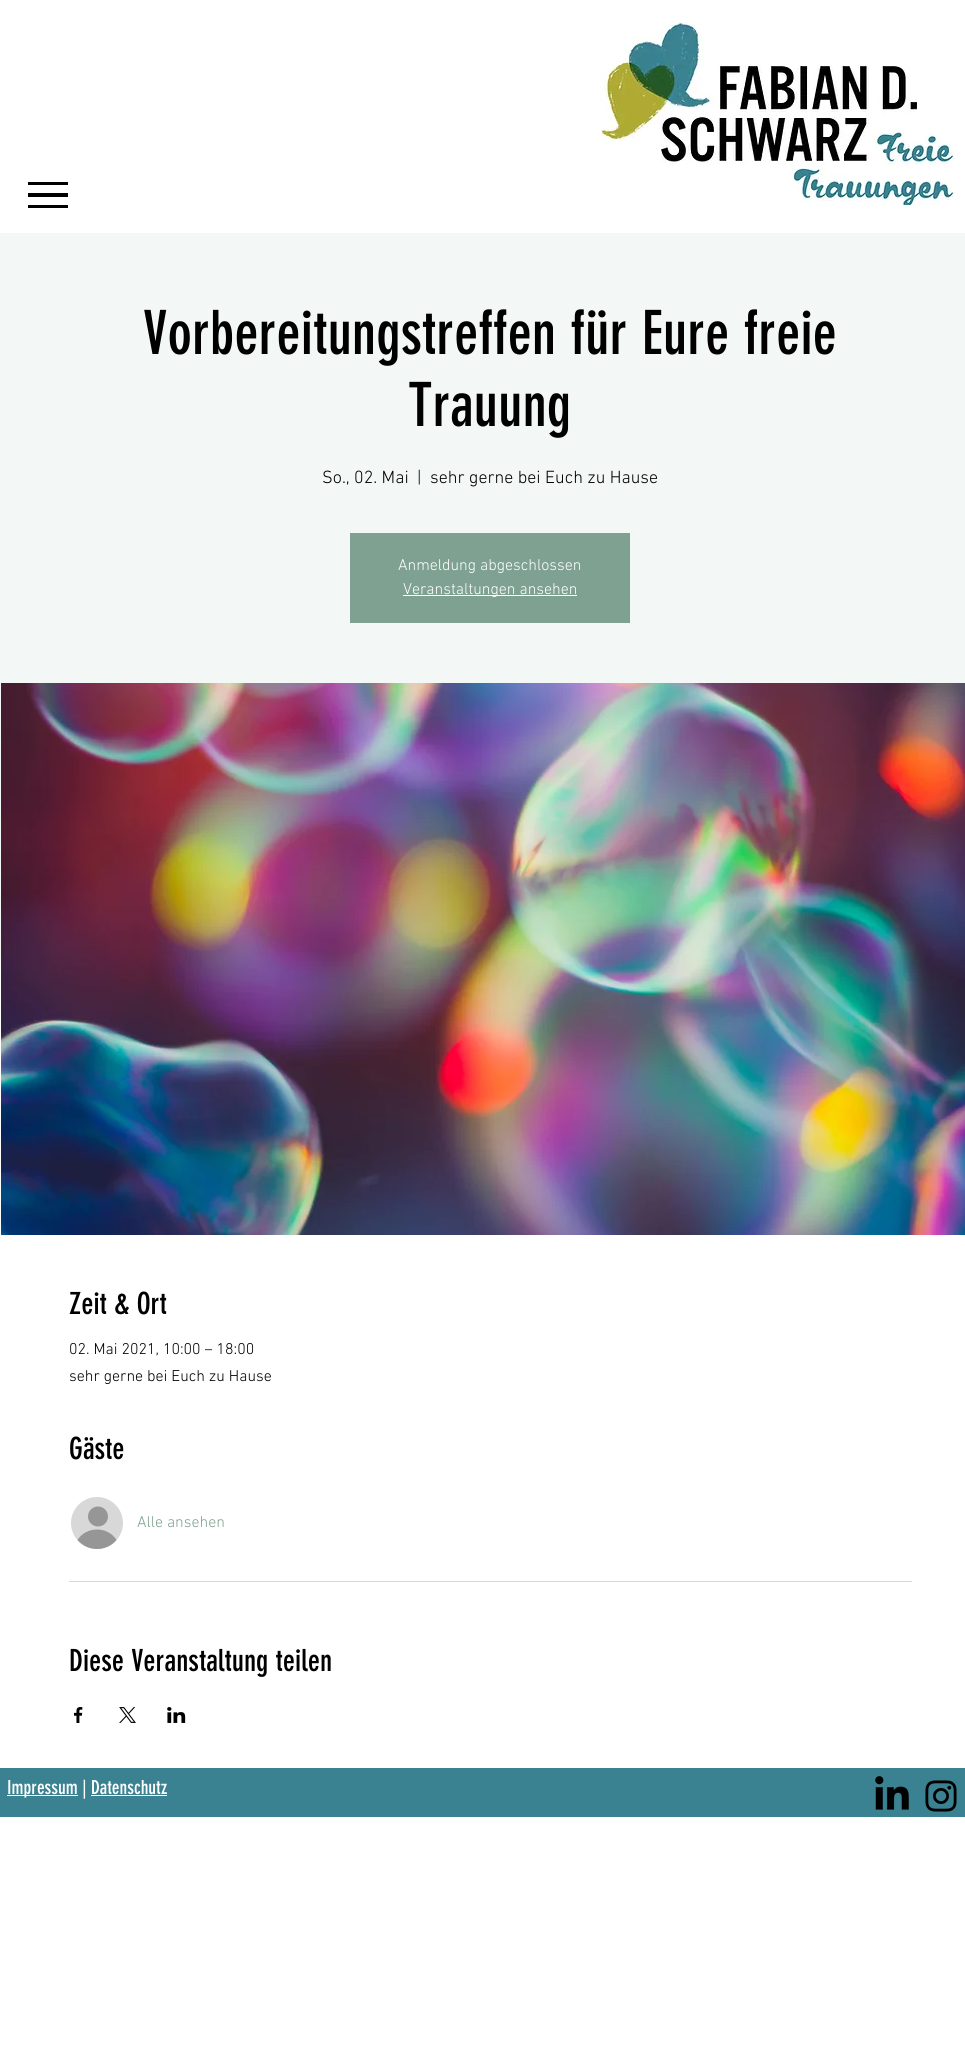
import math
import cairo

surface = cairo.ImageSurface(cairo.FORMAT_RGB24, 965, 2071)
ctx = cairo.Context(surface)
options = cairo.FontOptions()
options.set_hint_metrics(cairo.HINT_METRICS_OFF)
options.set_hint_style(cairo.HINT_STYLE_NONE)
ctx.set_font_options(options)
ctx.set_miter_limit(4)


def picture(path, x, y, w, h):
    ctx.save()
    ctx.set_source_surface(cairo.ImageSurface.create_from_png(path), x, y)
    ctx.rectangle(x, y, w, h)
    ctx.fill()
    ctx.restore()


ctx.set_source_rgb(1, 1, 1)
ctx.paint()
ctx.set_source_rgb(0, 0, 0)
ctx.rectangle(28, 205, 40, 3)
ctx.fill()
ctx.rectangle(28, 182, 40, 3)
ctx.fill()
ctx.rectangle(28, 193, 40, 4)
ctx.fill()
picture("img1.png", 600, 21, 354, 184)
ctx.set_source_rgb(0.953, 0.965, 0.961)
ctx.rectangle(0, 233, 965, 726)
ctx.fill()
ctx.select_font_face("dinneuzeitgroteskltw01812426")
ctx.set_font_size(60)
ctx.set_source_rgb(0, 0, 0)
ctx.move_to(143, 354)
ctx.show_text("Vorbereitungstreffen für Eure freie")
ctx.move_to(408, 426)
ctx.show_text("Trauung")
ctx.select_font_face("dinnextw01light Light")
ctx.set_font_size(18)
ctx.move_to(322, 483)
ctx.show_text("So., 02. Mai")
ctx.move_to(417, 483)
ctx.show_text("|")
ctx.move_to(430, 483)
ctx.show_text("sehr gerne bei Euch zu Hause")
ctx.set_source_rgb(0.498, 0.631, 0.569)
ctx.rectangle(350, 533, 280, 90)
ctx.fill()
ctx.set_font_size(16)
ctx.set_source_rgb(1, 1, 1)
ctx.move_to(398, 570)
ctx.show_text("Anmeldung abgeschlossen")
ctx.rectangle(403, 595, 174, 1)
ctx.fill()
ctx.move_to(403, 594)
ctx.show_text("Veranstaltungen ansehen")
picture("img2.png", 1, 683, 964, 552)
ctx.select_font_face("dinneuzeitgroteskltw01812426")
ctx.set_font_size(30)
ctx.set_source_rgb(0, 0, 0)
ctx.move_to(69, 1314)
ctx.show_text("Zeit & Ort")
ctx.select_font_face("dinnextw01light Light")
ctx.set_font_size(16)
ctx.move_to(69, 1354)
ctx.show_text("02. Mai 2021, 10:00 – 18:00")
ctx.move_to(69, 1381)
ctx.show_text("sehr gerne bei Euch zu Hause")
ctx.select_font_face("dinneuzeitgroteskltw01812426")
ctx.set_font_size(30)
ctx.move_to(69, 1459)
ctx.show_text("Gäste")
ctx.set_source_rgb(0.847, 0.847, 0.847)
ctx.new_path()
ctx.arc(97, 1523, 27, 0, 2 * math.pi)
ctx.fill_preserve()
ctx.set_source_rgb(1, 1, 1)
ctx.stroke()
ctx.set_source_rgb(0.588, 0.588, 0.588)
ctx.arc(98, 1516.5, 10, 0, 2 * math.pi)
ctx.fill()
ctx.new_path()
ctx.move_to(116.5, 1540)
ctx.curve_to(106.5, 1552, 87.5, 1552, 77.5, 1540)
ctx.curve_to(86, 1526, 108, 1526, 116.5, 1540)
ctx.close_path()
ctx.fill()
ctx.select_font_face("dinnextw01light Light")
ctx.set_font_size(16)
ctx.set_source_rgb(0.498, 0.631, 0.569)
ctx.move_to(137, 1527)
ctx.show_text("Alle ansehen")
ctx.set_source_rgb(0.851, 0.851, 0.851)
ctx.rectangle(69, 1581, 843, 1)
ctx.fill()
ctx.select_font_face("dinneuzeitgroteskltw01812426")
ctx.set_font_size(30)
ctx.set_source_rgb(0, 0, 0)
ctx.move_to(69, 1671)
ctx.show_text("Diese Veranstaltung teilen")
picture("img3.png", 74, 1707, 9, 16)
picture("img4.png", 119, 1707, 17, 16)
picture("img5.png", 167, 1707, 19, 16)
ctx.set_source_rgb(0.227, 0.51, 0.573)
ctx.rectangle(0, 1768, 965, 49)
ctx.fill()
ctx.set_source_rgb(1, 1, 1)
ctx.rectangle(7, 1795, 71, 1)
ctx.fill()
ctx.set_font_size(19)
ctx.move_to(7, 1794)
ctx.show_text("Impressum | Datenschutz")
ctx.rectangle(91, 1795, 76, 1)
ctx.fill()
picture("img6.png", 875, 1776, 34, 34)
picture("img7.png", 925, 1780, 32, 32)
surface.write_to_png("page.png")
